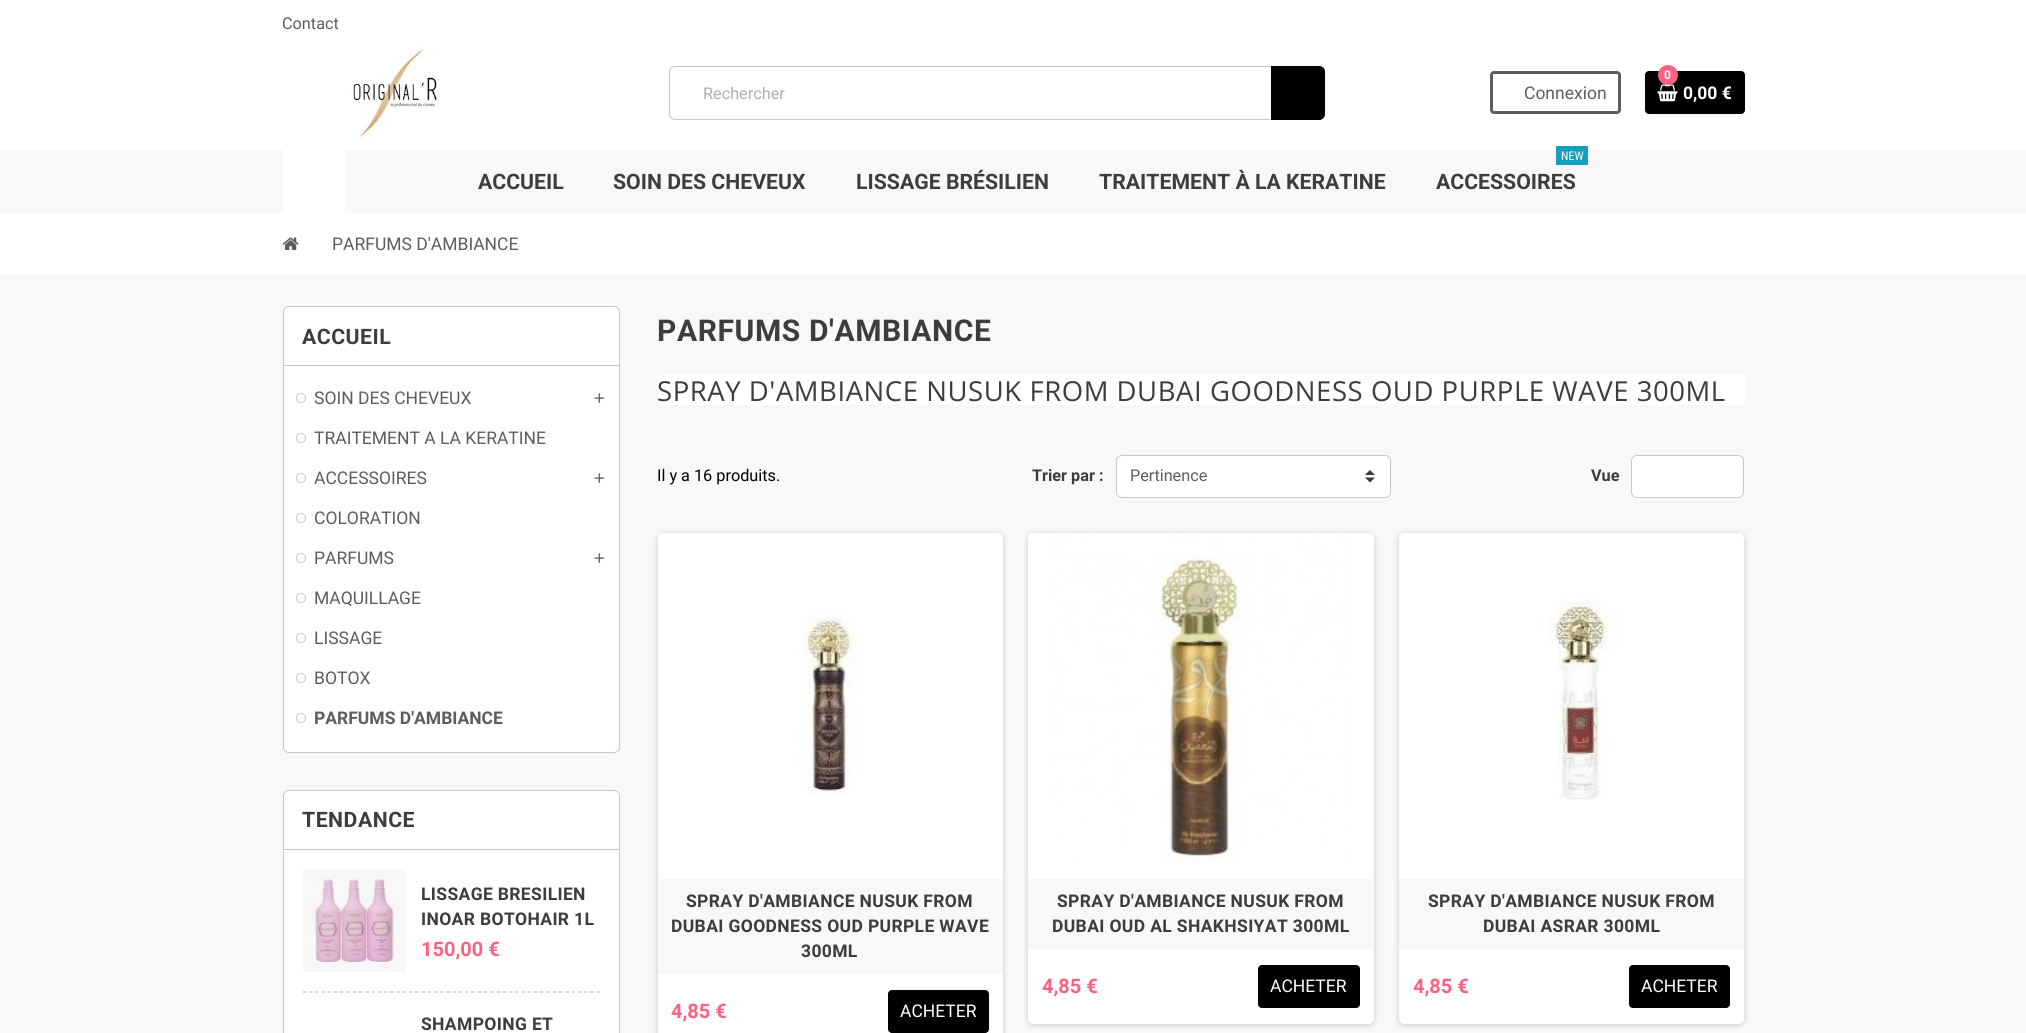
import math
import cairo

surface = cairo.ImageSurface(cairo.FORMAT_RGB24, 2026, 1033)
ctx = cairo.Context(surface)
options = cairo.FontOptions()
options.set_hint_metrics(cairo.HINT_METRICS_OFF)
options.set_hint_style(cairo.HINT_STYLE_NONE)
ctx.set_font_options(options)
ctx.set_miter_limit(4)


def spaced_text(x, y, s, letter, word):
    ctx.move_to(x, y)
    for ch in s:
        ctx.show_text(ch)
        ctx.rel_move_to(letter + word * (ch == ' '), 0)


def round_rect(x, y, w, h, r):
    ctx.new_sub_path()
    for i, (u, v) in enumerate([(x + w - r, y + h - r), (x + r, y + h - r), (x + r, y + r), (x + w - r, y + r)]):
        ctx.arc(u, v, r, i * math.pi / 2, (i + 1) * math.pi / 2)
    ctx.close_path()


def shadow(x, y, w, h, r, blur, alpha):
    ctx.push_group_with_content(cairo.CONTENT_ALPHA)
    ctx.set_operator(cairo.OPERATOR_SOURCE)
    for i in range(15, -16, -2):
        e = blur * i / 6
        if min(w, h) + 2 * e > 0:
            ctx.set_source_rgba(0, 0, 0, alpha * math.erfc((i - 1) / 8.5) / 2)
            round_rect(x - e, y - e, w + 2 * e, h + 2 * e, max(0, min(r + e + blur * .6, min(w, h) / 2 + e)))
            ctx.fill()
    ctx.mask(ctx.pop_group())


def picture(path, x, y, w, h):
    ctx.save()
    ctx.set_source_surface(cairo.ImageSurface.create_from_png(path), x, y)
    ctx.rectangle(x, y, w, h)
    ctx.fill()
    ctx.restore()


ctx.set_source_rgb(1, 1, 1)
ctx.paint()
ctx.select_font_face("Roboto")
ctx.set_font_size(16.25)
ctx.set_source_rgb(0.365, 0.365, 0.365)
ctx.move_to(282, 29)
ctx.show_text("Contact")
picture("img1.png", 351, 47, 89, 92)
round_rect(669.5, 66.5, 654, 53, 5.5)
ctx.set_source_rgb(0.78, 0.78, 0.78)
ctx.set_line_width(1)
ctx.stroke()
ctx.set_source_rgb(0.682, 0.682, 0.682)
ctx.move_to(703, 99)
ctx.show_text("Rechercher")
ctx.set_source_rgb(0, 0, 0)
ctx.new_path()
ctx.move_to(1271, 66)
ctx.line_to(1319, 66)
ctx.curve_to(1322.5, 66, 1325, 68.5, 1325, 72)
ctx.line_to(1325, 114)
ctx.curve_to(1325, 117.5, 1322.5, 120, 1319, 120)
ctx.line_to(1271, 120)
ctx.close_path()
ctx.fill()
round_rect(1491.5, 72.5, 128, 40, 2.5)
ctx.set_source_rgb(0.365, 0.365, 0.365)
ctx.set_line_width(3)
ctx.stroke()
ctx.set_font_size(17.5)
ctx.move_to(1524, 99)
ctx.show_text("Connexion")
ctx.set_source_rgb(0, 0, 0)
round_rect(1645, 71, 100, 43, 4)
ctx.fill()
picture("img2.png", 1657, 84, 21, 18)
ctx.set_source_rgb(0.992, 0.384, 0.51)
ctx.arc(1668, 75, 10, 0, 2 * math.pi)
ctx.fill()
ctx.select_font_face("Roboto", cairo.FONT_SLANT_NORMAL, cairo.FONT_WEIGHT_BOLD)
ctx.set_font_size(12)
ctx.set_source_rgb(1, 1, 1)
ctx.move_to(1664, 79)
ctx.show_text("0")
ctx.set_font_size(17.5)
ctx.move_to(1683, 99)
ctx.show_text("0,00 €")
ctx.set_source_rgb(0.969, 0.969, 0.969)
ctx.rectangle(0, 150, 2026, 63)
ctx.fill()
ctx.set_source_rgb(1, 1, 1)
ctx.rectangle(283, 150, 62, 63)
ctx.fill()
ctx.select_font_face("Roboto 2", cairo.FONT_SLANT_NORMAL, cairo.FONT_WEIGHT_BOLD)
ctx.set_font_size(21.25)
ctx.set_source_rgb(0.239, 0.239, 0.239)
ctx.move_to(478, 189)
ctx.show_text("ACCUEIL")
ctx.move_to(613, 189)
ctx.show_text("SOIN DES CHEVEUX")
ctx.move_to(856, 189)
ctx.show_text("LISSAGE BRÉSILIEN")
ctx.move_to(1099, 189)
ctx.show_text("TRAITEMENT À LA KERATINE")
ctx.set_source_rgb(0.075, 0.624, 0.741)
round_rect(1556, 146, 32, 19, 1)
ctx.fill()
ctx.select_font_face("Roboto Condensed")
ctx.set_font_size(12)
ctx.set_source_rgb(1, 1, 1)
ctx.move_to(1561, 160)
ctx.show_text("NEW")
ctx.select_font_face("Roboto 2", cairo.FONT_SLANT_NORMAL, cairo.FONT_WEIGHT_BOLD)
ctx.set_font_size(21.25)
ctx.set_source_rgb(0.239, 0.239, 0.239)
ctx.move_to(1436, 189)
ctx.show_text("ACCESSOIRES")
ctx.set_source_rgb(0.969, 0.969, 0.969)
ctx.rectangle(0, 275, 2026, 758)
ctx.fill()
picture("img3.png", 282, 237, 17, 13)
ctx.select_font_face("Roboto")
ctx.set_font_size(17.5)
ctx.set_source_rgb(0.365, 0.365, 0.365)
ctx.move_to(332, 250)
ctx.show_text("PARFUMS D'AMBIANCE")
ctx.set_source_rgb(1, 1, 1)
round_rect(283.5, 306.5, 336, 446, 5.5)
ctx.fill_preserve()
ctx.set_source_rgb(0.78, 0.78, 0.78)
ctx.set_line_width(1)
ctx.stroke()
ctx.rectangle(284, 365, 335, 1)
ctx.fill()
ctx.select_font_face("Roboto 2", cairo.FONT_SLANT_NORMAL, cairo.FONT_WEIGHT_BOLD)
ctx.set_font_size(21.25)
ctx.set_source_rgb(0.239, 0.239, 0.239)
spaced_text(302, 344, "ACCUEIL", 0.5, 0)
ctx.new_path()
ctx.arc(301, 398, 4.5, 0, 2 * math.pi)
ctx.set_source_rgb(0.78, 0.78, 0.78)
ctx.stroke()
ctx.select_font_face("Roboto")
ctx.set_font_size(17.5)
ctx.set_source_rgb(0.365, 0.365, 0.365)
ctx.move_to(314, 404)
ctx.show_text("SOIN DES CHEVEUX")
picture("img4.png", 594, 393, 11, 10)
ctx.arc(301, 438, 4.5, 0, 2 * math.pi)
ctx.set_source_rgb(0.78, 0.78, 0.78)
ctx.stroke()
ctx.set_source_rgb(0.365, 0.365, 0.365)
ctx.move_to(314, 444)
ctx.show_text("TRAITEMENT A LA KERATINE")
ctx.new_path()
ctx.arc(301, 478, 4.5, 0, 2 * math.pi)
ctx.set_source_rgb(0.78, 0.78, 0.78)
ctx.stroke()
ctx.set_source_rgb(0.365, 0.365, 0.365)
ctx.move_to(314, 484)
ctx.show_text("ACCESSOIRES")
picture("img4.png", 594, 473, 11, 10)
ctx.arc(301, 518, 4.5, 0, 2 * math.pi)
ctx.set_source_rgb(0.78, 0.78, 0.78)
ctx.stroke()
ctx.set_source_rgb(0.365, 0.365, 0.365)
ctx.move_to(314, 524)
ctx.show_text("COLORATION")
ctx.new_path()
ctx.arc(301, 558, 4.5, 0, 2 * math.pi)
ctx.set_source_rgb(0.78, 0.78, 0.78)
ctx.stroke()
ctx.set_source_rgb(0.365, 0.365, 0.365)
ctx.move_to(314, 564)
ctx.show_text("PARFUMS")
picture("img4.png", 594, 553, 11, 10)
ctx.arc(301, 598, 4.5, 0, 2 * math.pi)
ctx.set_source_rgb(0.78, 0.78, 0.78)
ctx.stroke()
ctx.set_source_rgb(0.365, 0.365, 0.365)
ctx.move_to(314, 604)
ctx.show_text("MAQUILLAGE")
ctx.new_path()
ctx.arc(301, 638, 4.5, 0, 2 * math.pi)
ctx.set_source_rgb(0.78, 0.78, 0.78)
ctx.stroke()
ctx.set_source_rgb(0.365, 0.365, 0.365)
ctx.move_to(314, 644)
ctx.show_text("LISSAGE")
ctx.new_path()
ctx.arc(301, 678, 4.5, 0, 2 * math.pi)
ctx.set_source_rgb(0.78, 0.78, 0.78)
ctx.stroke()
ctx.set_source_rgb(0.365, 0.365, 0.365)
ctx.move_to(314, 684)
ctx.show_text("BOTOX")
ctx.new_path()
ctx.arc(301, 718, 4.5, 0, 2 * math.pi)
ctx.set_source_rgb(0.78, 0.78, 0.78)
ctx.stroke()
ctx.select_font_face("Roboto", cairo.FONT_SLANT_NORMAL, cairo.FONT_WEIGHT_BOLD)
ctx.set_source_rgb(0.365, 0.365, 0.365)
ctx.move_to(314, 724)
ctx.show_text("PARFUMS D'AMBIANCE")
ctx.set_source_rgb(1, 1, 1)
round_rect(283.5, 790.5, 336, 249, 5.5)
ctx.fill_preserve()
ctx.set_source_rgb(0.78, 0.78, 0.78)
ctx.stroke()
ctx.rectangle(284, 849, 335, 1)
ctx.fill()
ctx.select_font_face("Roboto 2", cairo.FONT_SLANT_NORMAL, cairo.FONT_WEIGHT_BOLD)
ctx.set_font_size(21.25)
ctx.set_source_rgb(0.239, 0.239, 0.239)
spaced_text(302, 827, "TENDANCE", 0.5, 0)
picture("img5.png", 303, 869, 103, 103)
ctx.select_font_face("Roboto", cairo.FONT_SLANT_NORMAL, cairo.FONT_WEIGHT_BOLD)
ctx.set_font_size(17.5)
spaced_text(421, 900, "LISSAGE BRESILIEN", 0.35, 0)
spaced_text(421, 925, "INOAR BOTOHAIR 1L", 0.35, 0)
ctx.set_font_size(20)
ctx.set_source_rgb(0.992, 0.384, 0.51)
ctx.move_to(421, 956)
ctx.show_text("150,00 €")
ctx.new_path()
ctx.move_to(302.5, 992)
ctx.line_to(600, 992)
ctx.set_source_rgb(0.78, 0.78, 0.78)
ctx.set_line_width(1.2)
ctx.set_dash([3.75, 2.5])
ctx.stroke()
ctx.set_font_size(17.5)
ctx.set_source_rgb(0.239, 0.239, 0.239)
spaced_text(421, 1030, "SHAMPOING ET", 0.35, 0)
ctx.select_font_face("Roboto 2", cairo.FONT_SLANT_NORMAL, cairo.FONT_WEIGHT_BOLD)
ctx.set_font_size(30)
spaced_text(657, 341, "PARFUMS D'AMBIANCE", 0.6, 0)
ctx.set_source_rgb(1, 1, 1)
ctx.rectangle(658, 375, 1087, 30)
ctx.fill()
ctx.select_font_face("Open Sans")
ctx.set_font_size(27.5)
ctx.set_source_rgb(0.239, 0.239, 0.239)
spaced_text(657, 401, "SPRAY D'AMBIANCE NUSUK FROM DUBAI GOODNESS OUD PURPLE WAVE 300ML", 0.55, 0)
ctx.select_font_face("Roboto")
ctx.set_font_size(16.25)
ctx.set_source_rgb(0, 0, 0)
ctx.move_to(657, 481)
ctx.show_text("Il y a 16 produits.")
ctx.select_font_face("Roboto", cairo.FONT_SLANT_NORMAL, cairo.FONT_WEIGHT_BOLD)
ctx.set_source_rgb(0.239, 0.239, 0.239)
ctx.move_to(1032, 481)
ctx.show_text("Trier par :")
ctx.set_source_rgb(1, 1, 1)
round_rect(1116, 455, 275, 43, 6)
ctx.fill()
picture("img6.png", 1365, 470, 10, 13)
round_rect(1116.5, 455.5, 274, 42, 5.5)
ctx.set_source_rgb(0.78, 0.78, 0.78)
ctx.set_line_width(1)
ctx.set_dash([])
ctx.stroke()
ctx.select_font_face("Roboto")
ctx.set_source_rgb(0.365, 0.365, 0.365)
ctx.move_to(1130, 481)
ctx.show_text("Pertinence")
ctx.select_font_face("Roboto", cairo.FONT_SLANT_NORMAL, cairo.FONT_WEIGHT_BOLD)
ctx.set_source_rgb(0.239, 0.239, 0.239)
ctx.move_to(1591, 481)
ctx.show_text("Vue")
ctx.set_source_rgb(1, 1, 1)
round_rect(1631.5, 455.5, 112, 42, 5.5)
ctx.fill_preserve()
ctx.set_source_rgb(0.78, 0.78, 0.78)
ctx.stroke()
ctx.set_source_rgb(0, 0, 0)
shadow(658, 534, 345, 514, 6, 3, 0.2)
ctx.set_source_rgb(1, 1, 1)
round_rect(658, 533, 345, 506, 6)
ctx.fill()
picture("img7.png", 658, 533, 344, 261)
ctx.set_source_rgb(0.969, 0.969, 0.969)
ctx.rectangle(658, 879, 345, 95)
ctx.fill()
ctx.set_font_size(17.5)
ctx.set_source_rgb(0.239, 0.239, 0.239)
spaced_text(686, 907, "SPRAY D'AMBIANCE NUSUK FROM", 0.35, 0)
spaced_text(671, 932, "DUBAI GOODNESS OUD PURPLE WAVE", 0.35, 0)
spaced_text(801, 957, "300ML", 0.35, 0)
ctx.set_font_size(20)
ctx.set_source_rgb(0.992, 0.384, 0.51)
ctx.move_to(671, 1018)
ctx.show_text("4,85 €")
ctx.set_source_rgb(0, 0, 0)
round_rect(888, 990, 101, 43, 4)
ctx.fill()
ctx.select_font_face("Roboto")
ctx.set_font_size(17.5)
ctx.set_source_rgb(1, 1, 1)
ctx.move_to(900, 1017)
ctx.show_text("ACHETER")
ctx.set_source_rgb(0, 0, 0)
shadow(1028, 534, 346, 491, 6, 3, 0.2)
ctx.set_source_rgb(1, 1, 1)
round_rect(1028, 533, 346, 491, 6)
ctx.fill()
picture("img8.png", 1028, 533, 345, 331)
ctx.set_source_rgb(0.969, 0.969, 0.969)
ctx.rectangle(1028, 879, 346, 70)
ctx.fill()
ctx.select_font_face("Roboto", cairo.FONT_SLANT_NORMAL, cairo.FONT_WEIGHT_BOLD)
ctx.set_source_rgb(0.239, 0.239, 0.239)
spaced_text(1057, 907, "SPRAY D'AMBIANCE NUSUK FROM", 0.35, 0)
spaced_text(1052, 932, "DUBAI OUD AL SHAKHSIYAT 300ML", 0.35, 0)
ctx.set_font_size(20)
ctx.set_source_rgb(0.992, 0.384, 0.51)
ctx.move_to(1042, 993)
ctx.show_text("4,85 €")
ctx.set_source_rgb(0, 0, 0)
round_rect(1258, 965, 102, 43, 4)
ctx.fill()
ctx.select_font_face("Roboto")
ctx.set_font_size(17.5)
ctx.set_source_rgb(1, 1, 1)
ctx.move_to(1270, 992)
ctx.show_text("ACHETER")
ctx.set_source_rgb(0, 0, 0)
shadow(1399, 534, 345, 491, 6, 3, 0.2)
ctx.set_source_rgb(1, 1, 1)
round_rect(1399, 533, 345, 491, 6)
ctx.fill()
picture("img9.png", 1399, 533, 344, 267)
ctx.set_source_rgb(0.969, 0.969, 0.969)
ctx.rectangle(1399, 879, 345, 70)
ctx.fill()
ctx.select_font_face("Roboto", cairo.FONT_SLANT_NORMAL, cairo.FONT_WEIGHT_BOLD)
ctx.set_source_rgb(0.239, 0.239, 0.239)
spaced_text(1428, 907, "SPRAY D'AMBIANCE NUSUK FROM", 0.35, 0)
spaced_text(1483, 932, "DUBAI ASRAR 300ML", 0.35, 0)
ctx.set_font_size(20)
ctx.set_source_rgb(0.992, 0.384, 0.51)
ctx.move_to(1413, 993)
ctx.show_text("4,85 €")
ctx.set_source_rgb(0, 0, 0)
round_rect(1629, 965, 101, 43, 4)
ctx.fill()
ctx.select_font_face("Roboto")
ctx.set_font_size(17.5)
ctx.set_source_rgb(1, 1, 1)
ctx.move_to(1641, 992)
ctx.show_text("ACHETER")
surface.write_to_png("page.png")
